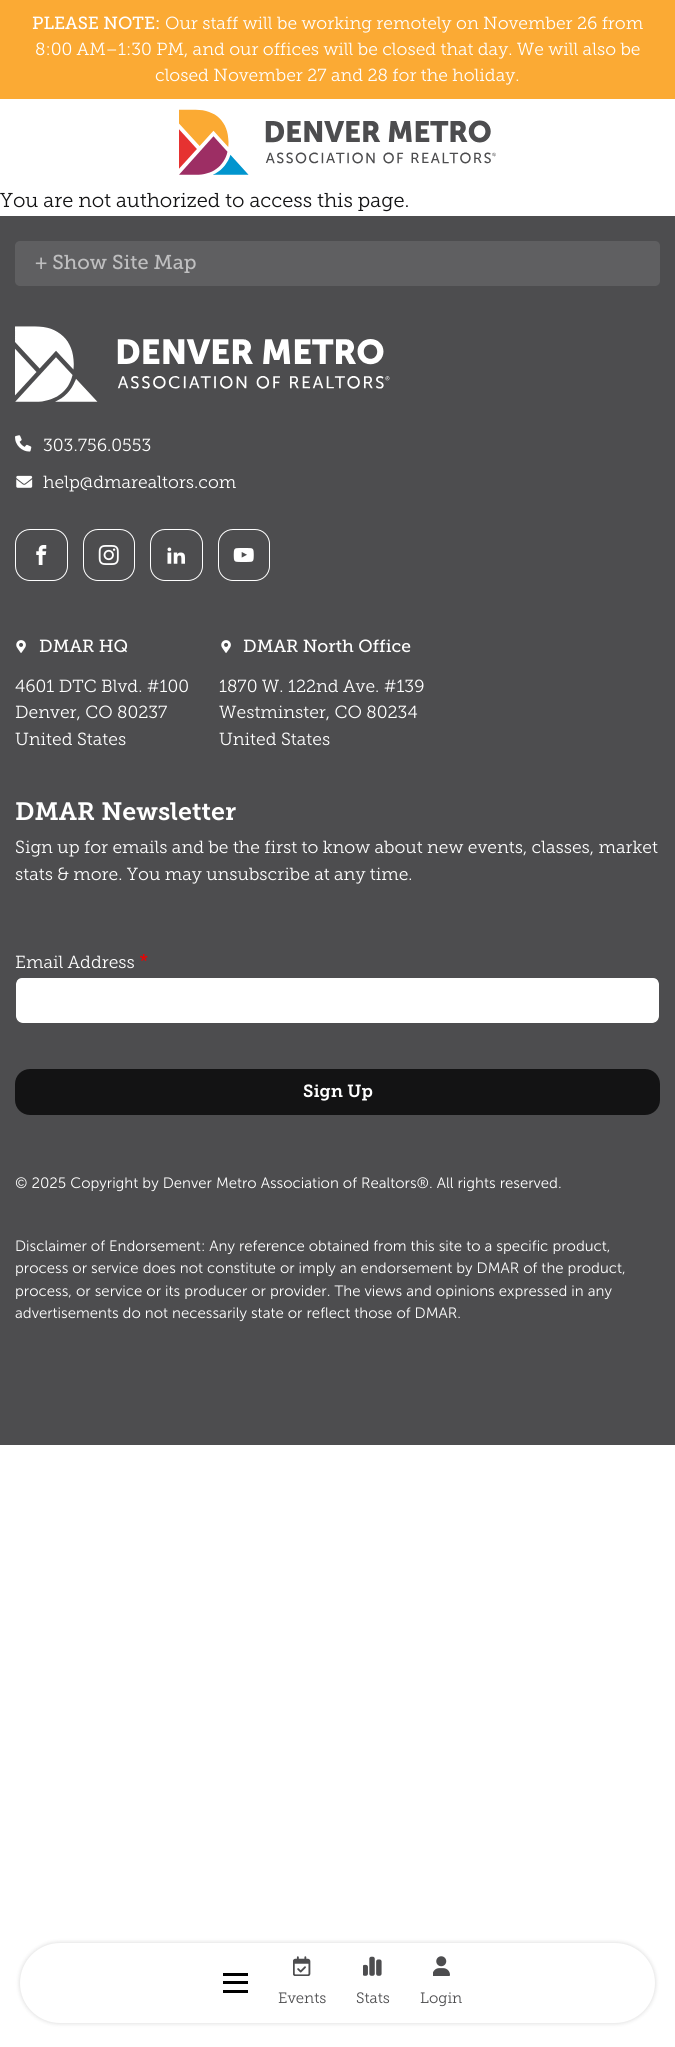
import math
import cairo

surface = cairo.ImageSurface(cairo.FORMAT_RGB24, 675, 2047)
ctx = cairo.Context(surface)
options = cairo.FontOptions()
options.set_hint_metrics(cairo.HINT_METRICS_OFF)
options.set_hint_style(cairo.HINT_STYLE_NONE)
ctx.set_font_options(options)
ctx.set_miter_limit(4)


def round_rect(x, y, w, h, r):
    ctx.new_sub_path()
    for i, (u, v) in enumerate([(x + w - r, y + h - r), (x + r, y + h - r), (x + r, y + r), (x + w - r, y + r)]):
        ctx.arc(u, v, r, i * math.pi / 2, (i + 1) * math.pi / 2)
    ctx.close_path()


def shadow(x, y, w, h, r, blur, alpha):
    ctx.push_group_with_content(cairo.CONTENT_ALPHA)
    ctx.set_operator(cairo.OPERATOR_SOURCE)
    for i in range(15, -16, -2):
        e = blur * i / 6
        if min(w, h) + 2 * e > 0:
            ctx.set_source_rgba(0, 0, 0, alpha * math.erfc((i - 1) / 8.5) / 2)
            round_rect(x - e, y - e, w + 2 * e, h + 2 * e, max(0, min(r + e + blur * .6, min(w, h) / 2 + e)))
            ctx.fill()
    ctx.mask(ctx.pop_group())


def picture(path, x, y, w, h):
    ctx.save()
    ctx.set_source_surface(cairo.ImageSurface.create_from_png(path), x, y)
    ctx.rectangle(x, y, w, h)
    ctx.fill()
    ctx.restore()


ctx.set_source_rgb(1, 1, 1)
ctx.paint()
ctx.set_source_rgb(0.984, 0.667, 0.204)
ctx.rectangle(0, 0, 675, 99)
ctx.fill()
ctx.select_font_face("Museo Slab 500")
ctx.set_font_size(17.5)
ctx.set_source_rgb(1, 1, 1)
ctx.move_to(32, 29)
ctx.show_text("PLEASE NOTE:")
ctx.select_font_face("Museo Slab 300 Light")
ctx.move_to(165, 29)
ctx.show_text("Our staff will be working remotely on November 26 from")
ctx.move_to(35, 55)
ctx.show_text("8:00 AM–1:30 PM, and our offices will be closed that day. We will also be")
ctx.move_to(155, 81)
ctx.show_text("closed November 27 and 28 for the holiday.")
picture("img1.png", 179, 109, 317, 66)
ctx.set_font_size(20)
ctx.set_source_rgb(0.078, 0.078, 0.082)
ctx.move_to(0, 207)
ctx.show_text("You are not authorized to access this page.")
ctx.set_source_rgb(0.302, 0.302, 0.31)
ctx.rectangle(0, 216, 675, 1229)
ctx.fill()
ctx.set_source_rgb(0.373, 0.373, 0.38)
round_rect(15, 241, 645, 45, 5)
ctx.fill()
ctx.select_font_face("Museo Slab 500")
ctx.set_source_rgb(0.749, 0.749, 0.753)
ctx.move_to(35, 269)
ctx.show_text("+ Show Site Map")
picture("img2.png", 15, 326, 375, 76)
picture("img3.png", 15, 435, 17, 17)
ctx.select_font_face("Museo Slab 300 Light")
ctx.set_font_size(17.5)
ctx.set_source_rgb(1, 1, 1)
ctx.move_to(43, 451)
ctx.show_text("303.756.0553")
picture("img4.png", 16, 475, 17, 13)
ctx.move_to(43, 488)
ctx.show_text("help@dmarealtors.com")
round_rect(15.5, 529.5, 52, 51, 14.5)
ctx.set_line_width(1)
ctx.stroke()
picture("img5.png", 36, 545, 11, 20)
round_rect(83.5, 529.5, 51, 51, 14.5)
ctx.stroke()
picture("img6.png", 98, 545, 21, 20)
round_rect(150.5, 529.5, 52, 51, 14.5)
ctx.stroke()
picture("img7.png", 167, 547, 18, 17)
round_rect(218.5, 529.5, 51, 51, 14.5)
ctx.stroke()
picture("img8.png", 233, 548, 21, 14)
picture("img9.png", 16, 640, 10, 13)
ctx.select_font_face("Museo Slab 500")
ctx.move_to(39, 652)
ctx.show_text("DMAR HQ")
ctx.select_font_face("Museo Slab 300 Light")
ctx.move_to(15, 692)
ctx.show_text("4601 DTC Blvd. #100")
ctx.move_to(15, 718)
ctx.show_text("Denver, CO 80237")
ctx.move_to(15, 745)
ctx.show_text("United States")
picture("img9.png", 221, 640, 10, 13)
ctx.select_font_face("Museo Slab 500")
ctx.move_to(243, 652)
ctx.show_text("DMAR North Office")
ctx.select_font_face("Museo Slab 300 Light")
ctx.move_to(219, 692)
ctx.show_text("1870 W. 122nd Ave. #139")
ctx.move_to(219, 718)
ctx.show_text("Westminster, CO 80234")
ctx.move_to(219, 745)
ctx.show_text("United States")
ctx.select_font_face("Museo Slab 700 SemiBold")
ctx.set_font_size(25)
ctx.move_to(15, 820)
ctx.show_text("DMAR Newsletter")
ctx.select_font_face("Museo Slab 300 Light")
ctx.set_font_size(17.5)
ctx.move_to(15, 853)
ctx.show_text("Sign up for emails and be the first to know about new events, classes, market")
ctx.move_to(15, 880)
ctx.show_text("stats & more. You may unsubscribe at any time.")
ctx.move_to(15, 968)
ctx.show_text("Email Address")
picture("img10.png", 140, 954, 8, 7)
round_rect(16, 978, 643, 45, 6)
ctx.fill()
round_rect(15.5, 976.5, 644, 47, 7.5)
ctx.set_source_rgb(0.302, 0.302, 0.31)
ctx.stroke()
ctx.set_source_rgb(0.078, 0.078, 0.082)
round_rect(16.5, 1070.5, 642, 43, 13.5)
ctx.fill_preserve()
ctx.set_line_width(3)
ctx.stroke()
ctx.select_font_face("Museo Slab 700 SemiBold")
ctx.set_source_rgb(1, 1, 1)
ctx.move_to(303, 1097)
ctx.show_text("Sign Up")
ctx.select_font_face("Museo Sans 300 Light")
ctx.set_font_size(15)
ctx.move_to(15, 1188)
ctx.show_text("© 2025 Copyright by Denver Metro Association of Realtors®. All rights reserved.")
ctx.move_to(15, 1251)
ctx.show_text("Disclaimer of Endorsement: Any reference obtained from this site to a specific product,")
ctx.move_to(15, 1273)
ctx.show_text("process or service does not constitute or imply an endorsement by DMAR of the product,")
ctx.move_to(15, 1296)
ctx.show_text("process, or service or its producer or provider. The views and opinions expressed in any")
ctx.move_to(15, 1318)
ctx.show_text("advertisements do not necessarily state or reflect those of DMAR.")
ctx.set_source_rgb(0, 0, 0)
shadow(20, 1943, 635, 80, 40, 2.5, 0.16)
ctx.set_source_rgb(1, 1, 1)
round_rect(20, 1943, 635, 80, 40)
ctx.fill()
ctx.set_source_rgb(0, 0, 0)
ctx.rectangle(223, 1973, 25, 3)
ctx.fill()
ctx.rectangle(223, 1981, 25, 3)
ctx.fill()
ctx.rectangle(223, 1990, 25, 3)
ctx.fill()
picture("img11.png", 293, 1956, 18, 20)
ctx.select_font_face("Museo Slab 300 Light")
ctx.set_source_rgb(0.302, 0.302, 0.31)
ctx.move_to(278, 2003)
ctx.show_text("Events")
picture("img12.png", 363, 1956, 19, 20)
ctx.move_to(356, 2003)
ctx.show_text("Stats")
picture("img13.png", 433, 1956, 17, 20)
ctx.move_to(420, 2003)
ctx.show_text("Login")
surface.write_to_png("page.png")
